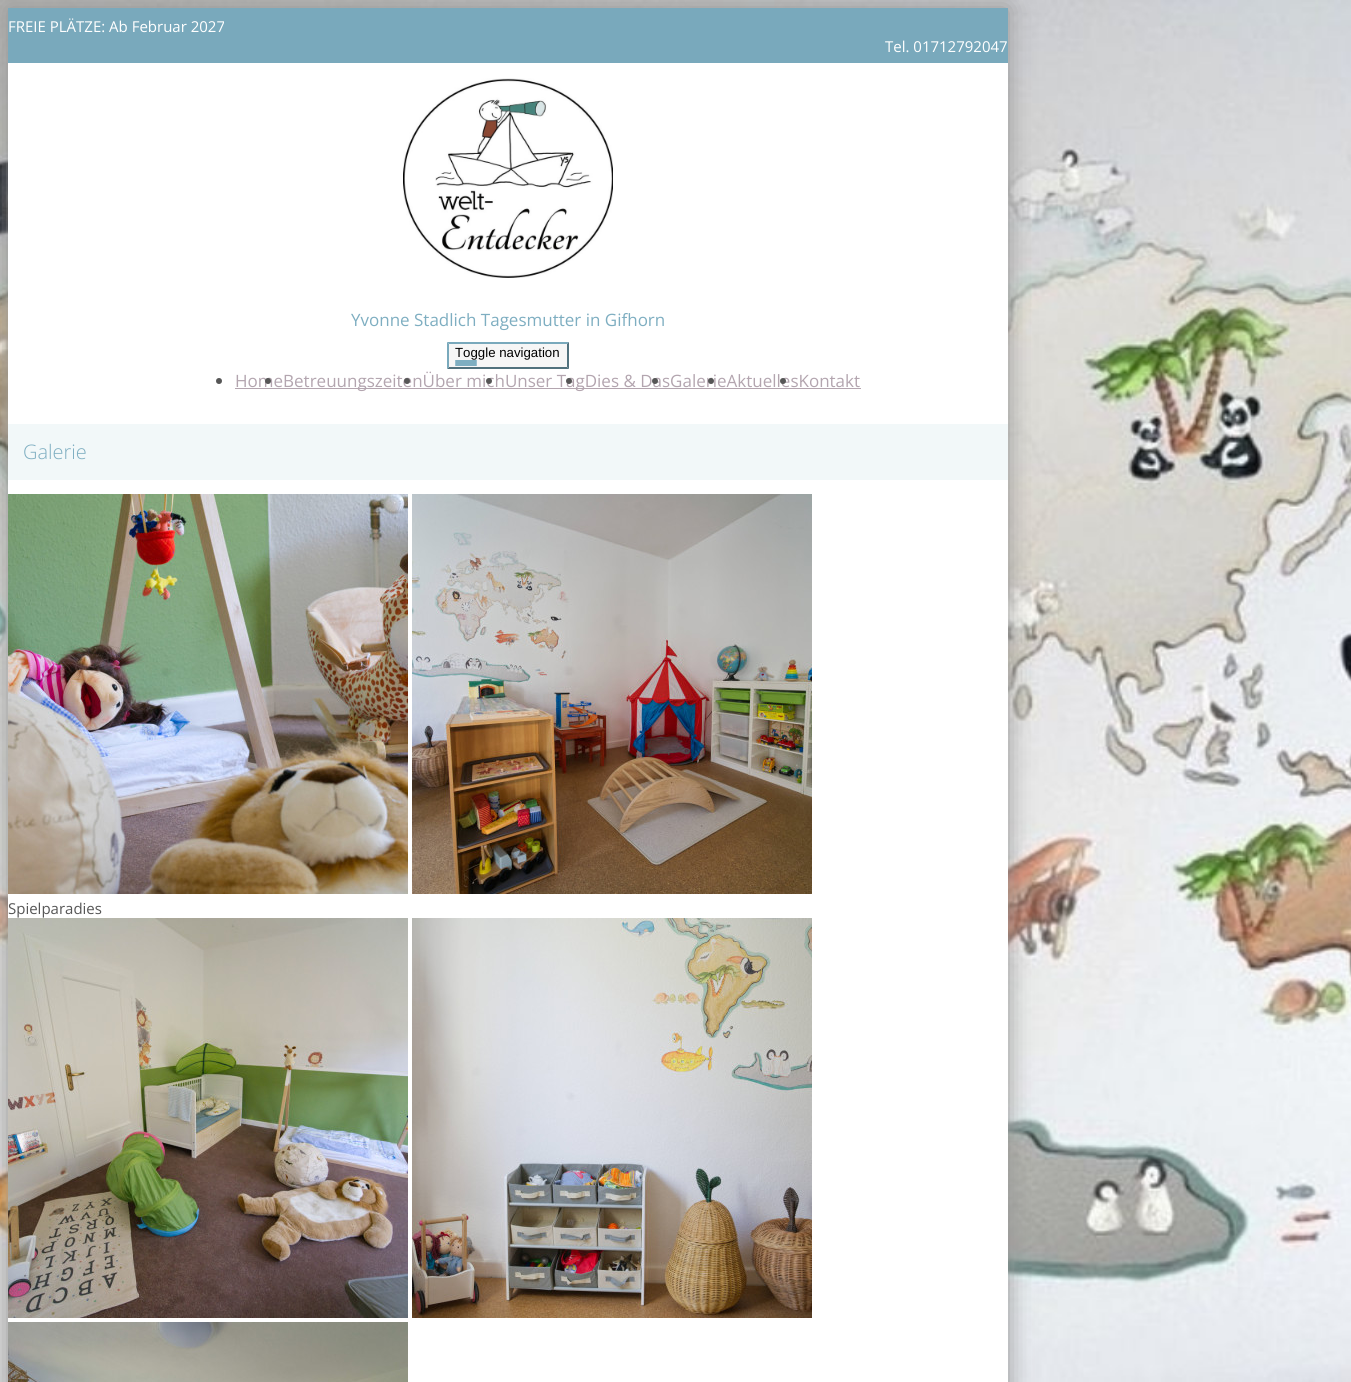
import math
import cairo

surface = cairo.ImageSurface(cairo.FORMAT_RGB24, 1351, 1382)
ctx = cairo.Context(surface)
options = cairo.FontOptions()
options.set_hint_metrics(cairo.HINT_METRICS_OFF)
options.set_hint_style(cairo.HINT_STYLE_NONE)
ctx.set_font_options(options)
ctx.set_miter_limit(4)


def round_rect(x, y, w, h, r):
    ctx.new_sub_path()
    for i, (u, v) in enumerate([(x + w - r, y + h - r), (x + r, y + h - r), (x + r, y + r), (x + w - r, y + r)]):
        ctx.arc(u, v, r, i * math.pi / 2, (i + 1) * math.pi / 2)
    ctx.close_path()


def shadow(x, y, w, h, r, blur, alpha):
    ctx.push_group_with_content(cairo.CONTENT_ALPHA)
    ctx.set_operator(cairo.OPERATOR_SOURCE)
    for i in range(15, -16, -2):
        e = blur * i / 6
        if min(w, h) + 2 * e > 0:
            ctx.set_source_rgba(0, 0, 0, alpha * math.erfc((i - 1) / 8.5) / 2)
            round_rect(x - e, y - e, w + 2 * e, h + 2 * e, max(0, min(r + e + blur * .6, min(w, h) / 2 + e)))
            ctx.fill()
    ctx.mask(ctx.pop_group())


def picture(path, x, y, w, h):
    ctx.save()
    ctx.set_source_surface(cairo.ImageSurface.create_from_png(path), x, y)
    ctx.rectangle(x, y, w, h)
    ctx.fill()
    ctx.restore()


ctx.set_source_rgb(1, 1, 1)
ctx.paint()
picture("img1.png", 0, 0, 1351, 1382)
ctx.set_source_rgb(0.58, 0.58, 0.58)
shadow(8, 8, 1000, 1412, 0, 12.5, 1)
ctx.set_source_rgb(1, 1, 1)
ctx.rectangle(8, 63, 1000, 1319)
ctx.fill()
ctx.set_source_rgb(0.475, 0.663, 0.737)
ctx.rectangle(8, 8, 1000, 55)
ctx.fill()
ctx.select_font_face("Open Sans")
ctx.set_font_size(15)
ctx.set_source_rgb(1, 1, 1)
ctx.move_to(8, 32)
ctx.show_text("FREIE PLÄTZE: Ab Februar 2027")
ctx.move_to(885, 52)
ctx.show_text("Tel. 01712792047")
picture("img2.png", 403, 78, 210, 200)
ctx.set_font_size(17)
ctx.set_source_rgb(0.494, 0.682, 0.757)
ctx.move_to(351, 326)
ctx.show_text("Yvonne Stadlich Tagesmutter in Gifhorn")
ctx.set_source_rgb(0.961, 0.961, 0.961)
ctx.rectangle(447, 342, 122, 27)
ctx.fill()
ctx.set_source_rgb(0.475, 0.663, 0.737)
ctx.new_path()
ctx.move_to(447, 342)
ctx.line_to(569, 342)
ctx.line_to(567, 344)
ctx.line_to(449, 344)
ctx.close_path()
ctx.fill()
ctx.set_source_rgb(0.318, 0.443, 0.49)
ctx.new_path()
ctx.move_to(569, 342)
ctx.line_to(569, 369)
ctx.line_to(567, 367)
ctx.line_to(567, 344)
ctx.close_path()
ctx.fill()
ctx.new_path()
ctx.move_to(569, 369)
ctx.line_to(447, 369)
ctx.line_to(449, 367)
ctx.line_to(567, 367)
ctx.close_path()
ctx.fill()
ctx.set_source_rgb(0.475, 0.663, 0.737)
ctx.new_path()
ctx.move_to(447, 369)
ctx.line_to(447, 342)
ctx.line_to(449, 344)
ctx.line_to(449, 367)
ctx.close_path()
ctx.fill()
ctx.select_font_face("Liberation Sans")
ctx.set_font_size(13.25)
ctx.set_source_rgb(0, 0, 0)
ctx.move_to(455, 357)
ctx.show_text("Toggle navigation")
ctx.set_source_rgb(0.494, 0.682, 0.757)
round_rect(455, 360, 22, 2, 1)
ctx.fill()
round_rect(455, 362, 22, 2, 1)
ctx.fill()
round_rect(455, 364, 22, 2, 1)
ctx.fill()
ctx.set_source_rgb(0.337, 0.337, 0.337)
ctx.arc(219, 381, 3, 0, 2 * math.pi)
ctx.fill()
ctx.set_source_rgb(0.702, 0.647, 0.686)
ctx.rectangle(235, 388, 626, 1)
ctx.fill()
ctx.select_font_face("Open Sans")
ctx.set_font_size(17)
ctx.move_to(235, 387)
ctx.show_text("HomeBetreuungszeitenÜber michUnser TagDies & DasGalerieAktuellesKontakt")
ctx.set_source_rgb(0.337, 0.337, 0.337)
ctx.new_path()
ctx.arc(268, 381, 3, 0, 2 * math.pi)
ctx.fill()
ctx.arc(407, 381, 3, 0, 2 * math.pi)
ctx.fill()
ctx.arc(489, 381, 3, 0, 2 * math.pi)
ctx.fill()
ctx.arc(569, 381, 3, 0, 2 * math.pi)
ctx.fill()
ctx.arc(655, 381, 3, 0, 2 * math.pi)
ctx.fill()
ctx.arc(711, 381, 3, 0, 2 * math.pi)
ctx.fill()
ctx.arc(783, 381, 3, 0, 2 * math.pi)
ctx.fill()
ctx.set_source_rgb(0.949, 0.969, 0.976)
ctx.rectangle(8, 424, 1000, 56)
ctx.fill()
ctx.select_font_face("Open Sans Light")
ctx.set_font_size(20)
ctx.set_source_rgb(0.494, 0.682, 0.757)
ctx.move_to(23, 459)
ctx.show_text("Galerie")
picture("img3.png", 8, 494, 400, 400)
picture("img4.png", 412, 494, 400, 400)
ctx.select_font_face("Open Sans")
ctx.set_font_size(15)
ctx.set_source_rgb(0.337, 0.337, 0.337)
ctx.move_to(8, 914)
ctx.show_text("Spielparadies")
picture("img5.png", 8, 918, 400, 400)
picture("img6.png", 412, 918, 400, 400)
picture("img7.png", 8, 1322, 400, 60)
surface.write_to_png("page.png")
